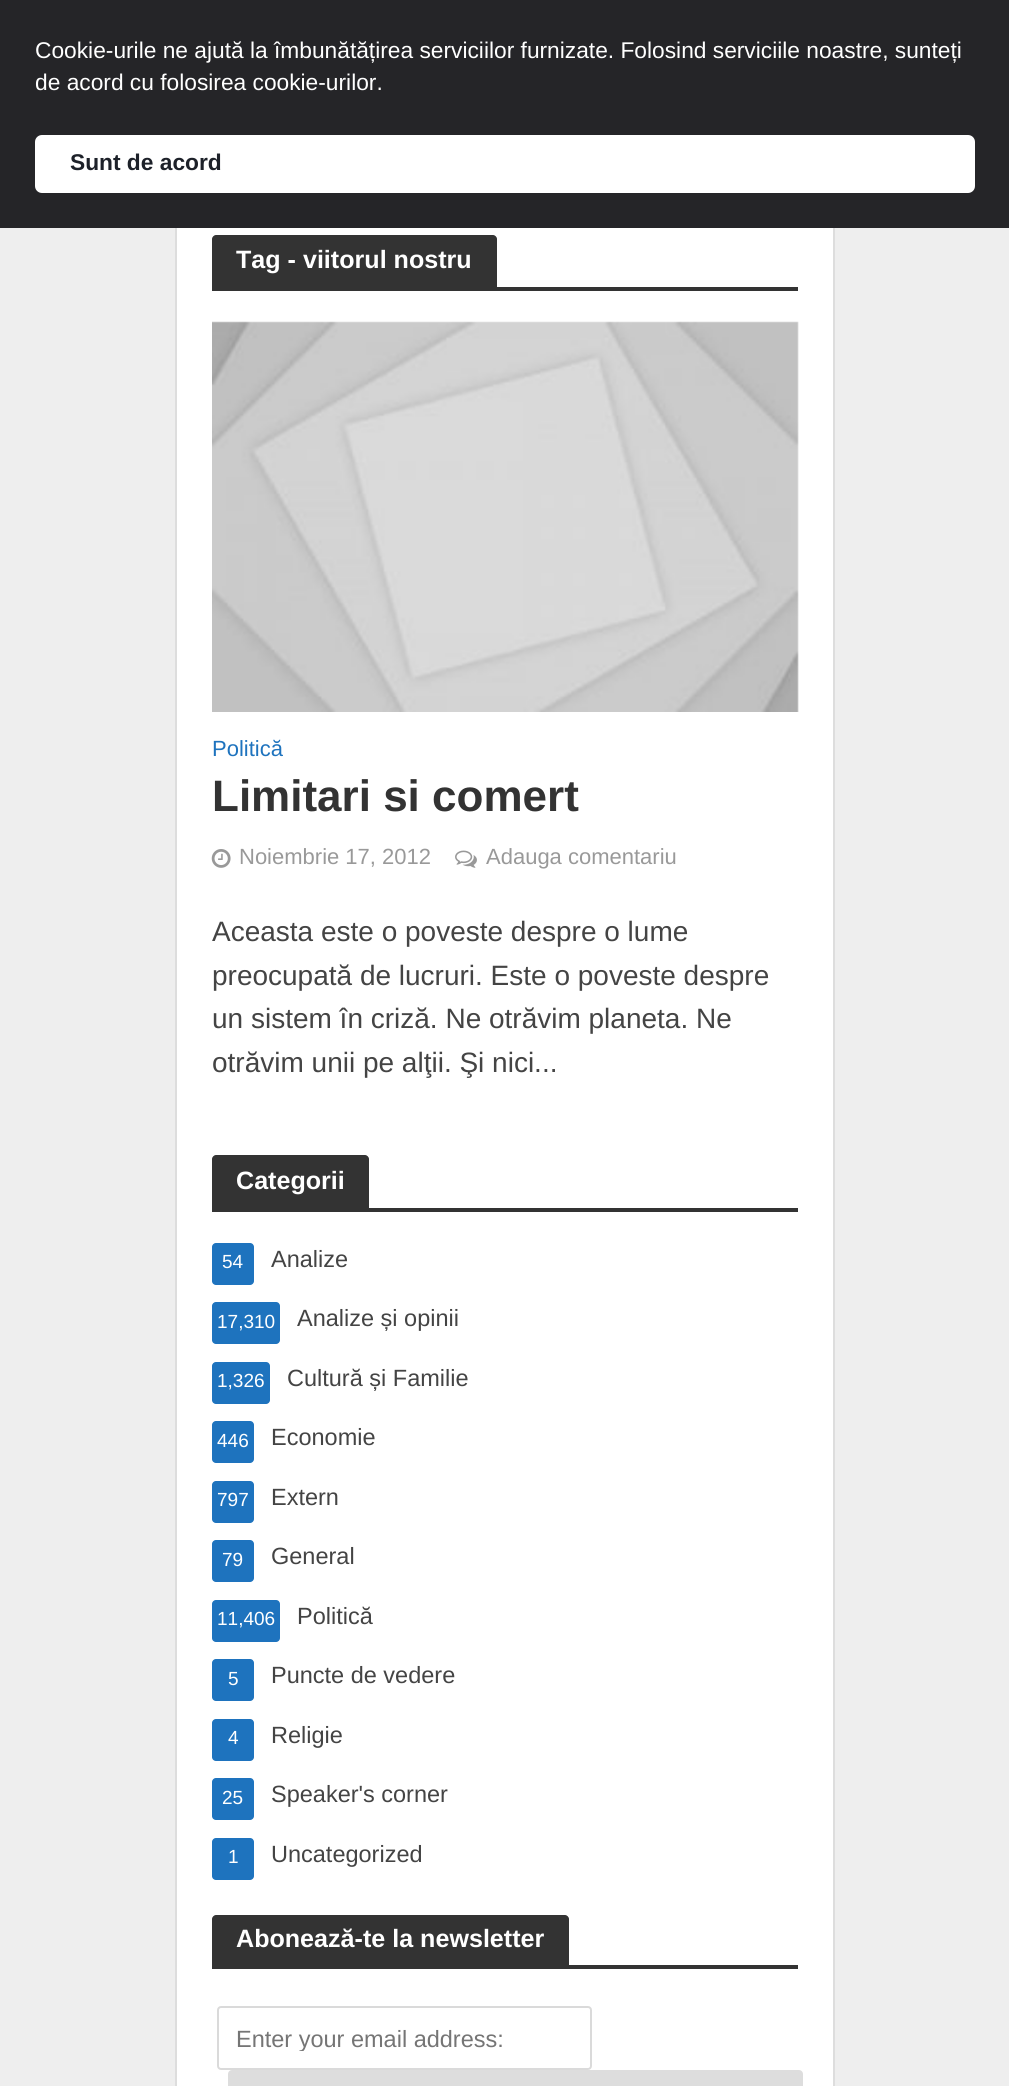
import math
import cairo

surface = cairo.ImageSurface(cairo.FORMAT_RGB24, 1009, 2086)
ctx = cairo.Context(surface)
options = cairo.FontOptions()
options.set_hint_metrics(cairo.HINT_METRICS_OFF)
options.set_hint_style(cairo.HINT_STYLE_NONE)
ctx.set_font_options(options)
ctx.set_miter_limit(4)


def round_rect(x, y, w, h, r):
    ctx.new_sub_path()
    for i, (u, v) in enumerate([(x + w - r, y + h - r), (x + r, y + h - r), (x + r, y + r), (x + w - r, y + r)]):
        ctx.arc(u, v, r, i * math.pi / 2, (i + 1) * math.pi / 2)
    ctx.close_path()


def picture(path, x, y, w, h):
    ctx.save()
    ctx.set_source_surface(cairo.ImageSurface.create_from_png(path), x, y)
    ctx.rectangle(x, y, w, h)
    ctx.fill()
    ctx.restore()


ctx.set_source_rgb(0.933, 0.933, 0.933)
ctx.paint()
ctx.rectangle(176, 199, 658, 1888)
ctx.set_source_rgb(0.867, 0.867, 0.867)
ctx.stroke()
ctx.set_source_rgb(0.145, 0.145, 0.157)
ctx.rectangle(0, 0, 1009, 228)
ctx.fill()
ctx.select_font_face("Liberation Sans")
ctx.set_font_size(22.75)
ctx.set_source_rgb(1, 1, 1)
ctx.move_to(35, 58)
ctx.show_text("Cookie-urile ne ajută la îmbunătățirea serviciilor furnizate. Folosind serviciile noastre, sunteți")
ctx.move_to(35, 90)
ctx.show_text("de acord cu folosirea cookie-urilor.")
round_rect(35, 135, 940, 58, 7)
ctx.fill()
ctx.select_font_face("Liberation Sans", cairo.FONT_SLANT_NORMAL, cairo.FONT_WEIGHT_BOLD)
ctx.set_source_rgb(0.114, 0.129, 0.161)
ctx.move_to(70, 170)
ctx.show_text("Sunt de acord")
ctx.set_source_rgb(1, 1, 1)
ctx.rectangle(177, 228, 656, 1858)
ctx.fill()
ctx.set_source_rgb(0.2, 0.2, 0.2)
ctx.new_path()
ctx.move_to(216, 235)
ctx.line_to(493, 235)
ctx.curve_to(495, 235, 497, 237, 497, 239)
ctx.line_to(497, 287)
ctx.line_to(212, 287)
ctx.line_to(212, 239)
ctx.curve_to(212, 237, 214, 235, 216, 235)
ctx.close_path()
ctx.fill()
ctx.set_font_size(25.1)
ctx.set_source_rgb(1, 1, 1)
ctx.move_to(236, 268)
ctx.show_text("Tag - viitorul nostru")
ctx.set_source_rgb(0.2, 0.2, 0.2)
ctx.rectangle(212, 287, 586, 4)
ctx.fill()
ctx.set_source_rgb(0.953, 0.953, 0.953)
ctx.rectangle(212, 322, 586, 390)
ctx.fill()
picture("img1.png", 212, 321, 587, 391)
ctx.select_font_face("Liberation Sans")
ctx.set_font_size(22)
ctx.set_source_rgb(0.118, 0.451, 0.745)
ctx.move_to(212, 756)
ctx.show_text("Politică")
ctx.select_font_face("Liberation Sans", cairo.FONT_SLANT_NORMAL, cairo.FONT_WEIGHT_BOLD)
ctx.set_font_size(44)
ctx.set_source_rgb(0.2, 0.2, 0.2)
ctx.move_to(212, 811)
ctx.show_text("Limitari si comert")
picture("img2.png", 211, 849, 20, 19)
ctx.select_font_face("Liberation Sans")
ctx.set_font_size(22)
ctx.set_source_rgb(0.6, 0.6, 0.6)
ctx.move_to(239, 864)
ctx.show_text("Noiembrie 17, 2012")
picture("img3.png", 455, 850, 22, 18)
ctx.move_to(486, 864)
ctx.show_text("Adauga comentariu")
ctx.set_font_size(28)
ctx.set_source_rgb(0.267, 0.267, 0.267)
ctx.move_to(212, 941)
ctx.show_text("Aceasta este o poveste despre o lume")
ctx.move_to(212, 985)
ctx.show_text("preocupată de lucruri. Este o poveste despre")
ctx.move_to(212, 1028)
ctx.show_text("un sistem în criză. Ne otrăvim planeta. Ne")
ctx.move_to(212, 1072)
ctx.show_text("otrăvim unii pe alţii. Şi nici...")
ctx.set_source_rgb(0.2, 0.2, 0.2)
ctx.new_path()
ctx.move_to(216, 1155)
ctx.line_to(365, 1155)
ctx.curve_to(367, 1155, 369, 1157, 369, 1159)
ctx.line_to(369, 1208)
ctx.line_to(212, 1208)
ctx.line_to(212, 1159)
ctx.curve_to(212, 1157, 214, 1155, 216, 1155)
ctx.close_path()
ctx.fill()
ctx.select_font_face("Liberation Sans", cairo.FONT_SLANT_NORMAL, cairo.FONT_WEIGHT_BOLD)
ctx.set_font_size(25.1)
ctx.set_source_rgb(1, 1, 1)
ctx.move_to(236, 1189)
ctx.show_text("Categorii")
ctx.set_source_rgb(0.2, 0.2, 0.2)
ctx.rectangle(212, 1208, 586, 4)
ctx.fill()
ctx.set_source_rgb(0.118, 0.451, 0.745)
round_rect(212, 1243, 42, 42, 4)
ctx.fill()
ctx.select_font_face("Liberation Sans")
ctx.set_font_size(19)
ctx.set_source_rgb(1, 1, 1)
ctx.move_to(222, 1268)
ctx.show_text("54")
ctx.set_font_size(23.5)
ctx.set_source_rgb(0.267, 0.267, 0.267)
ctx.move_to(271, 1267)
ctx.show_text("Analize")
ctx.set_source_rgb(0.118, 0.451, 0.745)
round_rect(212, 1302, 68, 42, 4)
ctx.fill()
ctx.set_font_size(19)
ctx.set_source_rgb(1, 1, 1)
ctx.move_to(217, 1328)
ctx.show_text("17,310")
ctx.set_font_size(23.5)
ctx.set_source_rgb(0.267, 0.267, 0.267)
ctx.move_to(297, 1326)
ctx.show_text("Analize și opinii")
ctx.set_source_rgb(0.118, 0.451, 0.745)
round_rect(212, 1362, 58, 42, 4)
ctx.fill()
ctx.set_font_size(19)
ctx.set_source_rgb(1, 1, 1)
ctx.move_to(217, 1387)
ctx.show_text("1,326")
ctx.set_font_size(23.5)
ctx.set_source_rgb(0.267, 0.267, 0.267)
ctx.move_to(287, 1386)
ctx.show_text("Cultură și Familie")
ctx.set_source_rgb(0.118, 0.451, 0.745)
round_rect(212, 1421, 42, 42, 4)
ctx.fill()
ctx.set_font_size(19)
ctx.set_source_rgb(1, 1, 1)
ctx.move_to(217, 1447)
ctx.show_text("446")
ctx.set_font_size(23.5)
ctx.set_source_rgb(0.267, 0.267, 0.267)
ctx.move_to(271, 1445)
ctx.show_text("Economie")
ctx.set_source_rgb(0.118, 0.451, 0.745)
round_rect(212, 1481, 42, 42, 4)
ctx.fill()
ctx.set_font_size(19)
ctx.set_source_rgb(1, 1, 1)
ctx.move_to(217, 1506)
ctx.show_text("797")
ctx.set_font_size(23.5)
ctx.set_source_rgb(0.267, 0.267, 0.267)
ctx.move_to(271, 1505)
ctx.show_text("Extern")
ctx.set_source_rgb(0.118, 0.451, 0.745)
round_rect(212, 1540, 42, 42, 4)
ctx.fill()
ctx.set_font_size(19)
ctx.set_source_rgb(1, 1, 1)
ctx.move_to(222, 1566)
ctx.show_text("79")
ctx.set_font_size(23.5)
ctx.set_source_rgb(0.267, 0.267, 0.267)
ctx.move_to(271, 1564)
ctx.show_text("General")
ctx.set_source_rgb(0.118, 0.451, 0.745)
round_rect(212, 1600, 68, 42, 4)
ctx.fill()
ctx.set_font_size(19)
ctx.set_source_rgb(1, 1, 1)
ctx.move_to(217, 1625)
ctx.show_text("11,406")
ctx.set_font_size(23.5)
ctx.set_source_rgb(0.267, 0.267, 0.267)
ctx.move_to(297, 1624)
ctx.show_text("Politică")
ctx.set_source_rgb(0.118, 0.451, 0.745)
round_rect(212, 1659, 42, 42, 4)
ctx.fill()
ctx.set_font_size(19)
ctx.set_source_rgb(1, 1, 1)
ctx.move_to(228, 1685)
ctx.show_text("5")
ctx.set_font_size(23.5)
ctx.set_source_rgb(0.267, 0.267, 0.267)
ctx.move_to(271, 1683)
ctx.show_text("Puncte de vedere")
ctx.set_source_rgb(0.118, 0.451, 0.745)
round_rect(212, 1719, 42, 42, 4)
ctx.fill()
ctx.set_font_size(19)
ctx.set_source_rgb(1, 1, 1)
ctx.move_to(228, 1744)
ctx.show_text("4")
ctx.set_font_size(23.5)
ctx.set_source_rgb(0.267, 0.267, 0.267)
ctx.move_to(271, 1743)
ctx.show_text("Religie")
ctx.set_source_rgb(0.118, 0.451, 0.745)
round_rect(212, 1778, 42, 42, 4)
ctx.fill()
ctx.set_font_size(19)
ctx.set_source_rgb(1, 1, 1)
ctx.move_to(222, 1804)
ctx.show_text("25")
ctx.set_font_size(23.5)
ctx.set_source_rgb(0.267, 0.267, 0.267)
ctx.move_to(271, 1802)
ctx.show_text("Speaker's corner")
ctx.set_source_rgb(0.118, 0.451, 0.745)
round_rect(212, 1838, 42, 42, 4)
ctx.fill()
ctx.set_font_size(19)
ctx.set_source_rgb(1, 1, 1)
ctx.move_to(228, 1863)
ctx.show_text("1")
ctx.set_font_size(23.5)
ctx.set_source_rgb(0.267, 0.267, 0.267)
ctx.move_to(271, 1862)
ctx.show_text("Uncategorized")
ctx.set_source_rgb(0.2, 0.2, 0.2)
ctx.new_path()
ctx.move_to(216, 1915)
ctx.line_to(565, 1915)
ctx.curve_to(567, 1915, 569, 1917, 569, 1919)
ctx.line_to(569, 1965)
ctx.line_to(212, 1965)
ctx.line_to(212, 1919)
ctx.curve_to(212, 1917, 214, 1915, 216, 1915)
ctx.close_path()
ctx.fill()
ctx.select_font_face("Liberation Sans", cairo.FONT_SLANT_NORMAL, cairo.FONT_WEIGHT_BOLD)
ctx.set_font_size(25.1)
ctx.set_source_rgb(1, 1, 1)
ctx.move_to(236, 1947)
ctx.show_text("Abonează-te la newsletter")
ctx.set_source_rgb(0.2, 0.2, 0.2)
ctx.rectangle(212, 1965, 586, 4)
ctx.fill()
round_rect(218, 2007, 373, 62, 3)
ctx.set_source_rgb(0.855, 0.855, 0.855)
ctx.stroke()
ctx.save()
ctx.rectangle(236, 2025, 336, 26)
ctx.clip()
ctx.select_font_face("Liberation Sans")
ctx.set_font_size(23.5)
ctx.set_source_rgb(0.459, 0.459, 0.459)
ctx.move_to(236, 2047)
ctx.show_text("Enter your email address:")
ctx.restore()
ctx.set_source_rgb(0.867, 0.867, 0.867)
round_rect(229, 2071, 573, 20, 3)
ctx.fill_preserve()
ctx.stroke()
surface.write_to_png("page.png")
